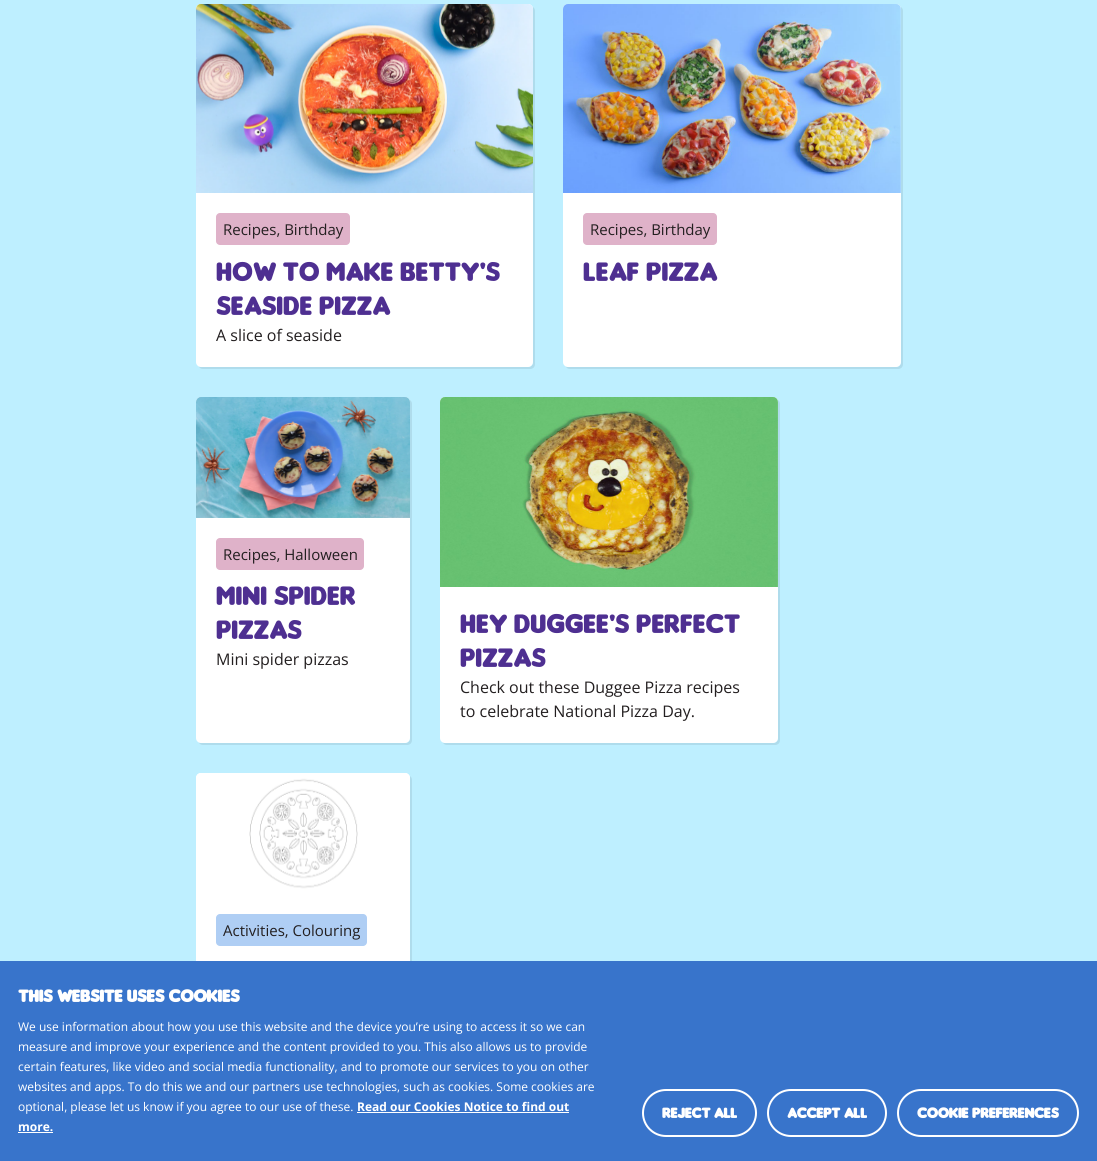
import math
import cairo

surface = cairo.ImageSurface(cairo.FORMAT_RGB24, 1097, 1161)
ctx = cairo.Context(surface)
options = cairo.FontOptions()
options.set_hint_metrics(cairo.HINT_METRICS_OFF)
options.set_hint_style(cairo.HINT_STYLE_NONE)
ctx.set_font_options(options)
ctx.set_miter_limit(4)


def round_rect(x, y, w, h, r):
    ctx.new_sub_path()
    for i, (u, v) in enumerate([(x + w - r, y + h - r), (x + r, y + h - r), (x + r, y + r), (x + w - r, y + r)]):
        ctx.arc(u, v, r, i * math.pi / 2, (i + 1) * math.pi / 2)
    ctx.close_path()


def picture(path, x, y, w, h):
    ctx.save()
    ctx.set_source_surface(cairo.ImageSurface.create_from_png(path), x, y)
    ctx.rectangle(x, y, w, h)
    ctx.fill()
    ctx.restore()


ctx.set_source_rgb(0.745, 0.937, 1)
ctx.paint()
ctx.set_source_rgb(0.686, 0.863, 0.922)
ctx.new_path()
ctx.move_to(199, 366)
ctx.curve_to(199, 368, 201, 369, 203, 369)
ctx.line_to(530, 369)
ctx.curve_to(533, 369, 535, 367, 535, 364)
ctx.line_to(535, 11)
ctx.curve_to(535, 9, 534, 7, 532, 7)
ctx.line_to(533, 9)
ctx.line_to(533, 362)
ctx.curve_to(533, 365, 531, 367, 528, 367)
ctx.line_to(201, 367)
ctx.close_path()
ctx.fill()
ctx.set_source_rgb(1, 1, 1)
round_rect(196, 4, 337, 363, 5)
ctx.fill()
picture("img1.png", 196, 4, 337, 189)
ctx.set_source_rgb(0.875, 0.698, 0.788)
round_rect(216, 213, 134, 32, 4)
ctx.fill()
ctx.select_font_face("Open Sans")
ctx.set_font_size(15)
ctx.set_source_rgb(0.137, 0.122, 0.125)
ctx.move_to(223, 235)
ctx.show_text("Recipes, Birthday")
ctx.select_font_face("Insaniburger")
ctx.set_font_size(28)
ctx.set_source_rgb(0.306, 0.184, 0.569)
ctx.move_to(216, 281)
ctx.show_text("How To Make Betty's")
ctx.move_to(216, 315)
ctx.show_text("Seaside Pizza")
ctx.select_font_face("Open Sans")
ctx.set_font_size(16)
ctx.set_source_rgb(0.137, 0.122, 0.125)
ctx.move_to(216, 341)
ctx.show_text("A slice of seaside")
ctx.set_source_rgb(0.686, 0.863, 0.922)
ctx.new_path()
ctx.move_to(566, 366)
ctx.curve_to(566, 368, 568, 369, 570, 369)
ctx.line_to(898, 369)
ctx.curve_to(901, 369, 903, 367, 903, 364)
ctx.line_to(903, 11)
ctx.curve_to(903, 9, 902, 7, 900, 7)
ctx.line_to(901, 9)
ctx.line_to(901, 362)
ctx.curve_to(901, 365, 899, 367, 896, 367)
ctx.line_to(568, 367)
ctx.close_path()
ctx.fill()
ctx.set_source_rgb(1, 1, 1)
round_rect(563, 4, 338, 363, 5)
ctx.fill()
picture("img2.png", 563, 4, 338, 189)
ctx.set_source_rgb(0.875, 0.698, 0.788)
round_rect(583, 213, 134, 32, 4)
ctx.fill()
ctx.set_font_size(15)
ctx.set_source_rgb(0.137, 0.122, 0.125)
ctx.move_to(590, 235)
ctx.show_text("Recipes, Birthday")
ctx.select_font_face("Insaniburger")
ctx.set_font_size(28)
ctx.set_source_rgb(0.306, 0.184, 0.569)
ctx.move_to(583, 281)
ctx.show_text("Leaf Pizza")
ctx.set_source_rgb(0.686, 0.863, 0.922)
ctx.new_path()
ctx.move_to(199, 742)
ctx.curve_to(199, 744, 201, 745, 203, 745)
ctx.line_to(407, 745)
ctx.curve_to(410, 745, 412, 743, 412, 740)
ctx.line_to(412, 404)
ctx.curve_to(412, 402, 411, 400, 409, 400)
ctx.line_to(410, 402)
ctx.line_to(410, 738)
ctx.curve_to(410, 741, 408, 743, 405, 743)
ctx.line_to(201, 743)
ctx.close_path()
ctx.fill()
ctx.set_source_rgb(1, 1, 1)
round_rect(196, 397, 214, 346, 5)
ctx.fill()
picture("img3.png", 196, 397, 214, 121)
ctx.set_source_rgb(0.875, 0.698, 0.788)
round_rect(216, 538, 148, 32, 4)
ctx.fill()
ctx.select_font_face("Open Sans")
ctx.set_font_size(15)
ctx.set_source_rgb(0.137, 0.122, 0.125)
ctx.move_to(223, 560)
ctx.show_text("Recipes, Halloween")
ctx.select_font_face("Insaniburger")
ctx.set_font_size(28)
ctx.set_source_rgb(0.306, 0.184, 0.569)
ctx.move_to(216, 605)
ctx.show_text("Mini Spider")
ctx.move_to(216, 639)
ctx.show_text("Pizzas")
ctx.select_font_face("Open Sans")
ctx.set_font_size(16)
ctx.set_source_rgb(0.137, 0.122, 0.125)
ctx.move_to(216, 665)
ctx.show_text("Mini spider pizzas")
ctx.set_source_rgb(0.686, 0.863, 0.922)
ctx.new_path()
ctx.move_to(443, 742)
ctx.curve_to(443, 744, 445, 745, 447, 745)
ctx.line_to(775, 745)
ctx.curve_to(778, 745, 780, 743, 780, 740)
ctx.line_to(780, 404)
ctx.curve_to(780, 402, 779, 400, 777, 400)
ctx.line_to(778, 402)
ctx.line_to(778, 738)
ctx.curve_to(778, 741, 776, 743, 773, 743)
ctx.line_to(445, 743)
ctx.close_path()
ctx.fill()
ctx.set_source_rgb(1, 1, 1)
round_rect(440, 397, 338, 346, 5)
ctx.fill()
picture("img4.png", 440, 397, 338, 190)
ctx.select_font_face("Insaniburger")
ctx.set_font_size(28)
ctx.set_source_rgb(0.306, 0.184, 0.569)
ctx.move_to(460, 633)
ctx.show_text("Hey Duggee's Perfect")
ctx.move_to(460, 667)
ctx.show_text("Pizzas")
ctx.select_font_face("Open Sans")
ctx.set_font_size(16)
ctx.set_source_rgb(0.137, 0.122, 0.125)
ctx.move_to(460, 693)
ctx.show_text("Check out these Duggee Pizza recipes")
ctx.move_to(460, 717)
ctx.show_text("to celebrate National Pizza Day.")
ctx.set_source_rgb(0.686, 0.863, 0.922)
ctx.new_path()
ctx.move_to(199, 1124)
ctx.curve_to(199, 1126, 201, 1127, 203, 1127)
ctx.line_to(407, 1127)
ctx.curve_to(410, 1127, 412, 1125, 412, 1122)
ctx.line_to(412, 780)
ctx.curve_to(412, 778, 411, 776, 409, 776)
ctx.line_to(410, 778)
ctx.line_to(410, 1120)
ctx.curve_to(410, 1123, 408, 1125, 405, 1125)
ctx.line_to(201, 1125)
ctx.close_path()
ctx.fill()
ctx.set_source_rgb(1, 1, 1)
round_rect(196, 773, 214, 352, 5)
ctx.fill()
picture("img5.png", 196, 773, 214, 121)
ctx.set_source_rgb(0.686, 0.808, 0.957)
round_rect(216, 914, 151, 32, 4)
ctx.fill()
ctx.set_font_size(15)
ctx.set_source_rgb(0.137, 0.122, 0.125)
ctx.move_to(223, 936)
ctx.show_text("Activities, Colouring")
ctx.set_source_rgb(0.22, 0.455, 0.796)
ctx.rectangle(0, 961, 1097, 200)
ctx.fill()
ctx.select_font_face("Insaniburger", cairo.FONT_SLANT_NORMAL, cairo.FONT_WEIGHT_BOLD)
ctx.set_font_size(18)
ctx.set_source_rgb(1, 1, 1)
ctx.move_to(18, 1002)
ctx.show_text("THIS WEBSITE USES COOKIES")
ctx.select_font_face("Open Sans")
ctx.set_font_size(12)
ctx.move_to(18, 1031)
ctx.show_text("We use information about how you use this website and the device you’re using to access it so we can")
ctx.move_to(18, 1051)
ctx.show_text("measure and improve your experience and the content provided to you. This also allows us to provide")
ctx.move_to(18, 1071)
ctx.show_text("certain features, like video and social media functionality, and to promote our services to you on other")
ctx.move_to(18, 1091)
ctx.show_text("websites and apps. To do this we and our partners use technologies, such as cookies. Some cookies are")
ctx.move_to(18, 1111)
ctx.show_text("optional, please let us know if you agree to our use of these.")
ctx.select_font_face("Open Sans", cairo.FONT_SLANT_NORMAL, cairo.FONT_WEIGHT_BOLD)
ctx.move_to(357, 1111)
ctx.show_text("Read our Cookies Notice to find out")
ctx.rectangle(357, 1112, 212, 1)
ctx.fill()
ctx.move_to(18, 1131)
ctx.show_text("more.")
ctx.rectangle(18, 1132, 35, 1)
ctx.fill()
round_rect(643, 1090, 113, 46, 23)
ctx.stroke()
ctx.select_font_face("Insaniburger", cairo.FONT_SLANT_NORMAL, cairo.FONT_WEIGHT_BOLD)
ctx.set_font_size(15)
ctx.move_to(662, 1118)
ctx.show_text("REJECT ALL")
round_rect(768, 1090, 118, 46, 23)
ctx.stroke()
ctx.move_to(787, 1118)
ctx.show_text("ACCEPT ALL")
round_rect(898, 1090, 180, 46, 23)
ctx.stroke()
ctx.move_to(917, 1118)
ctx.show_text("COOKIE PREFERENCES")
surface.write_to_png("page.png")
